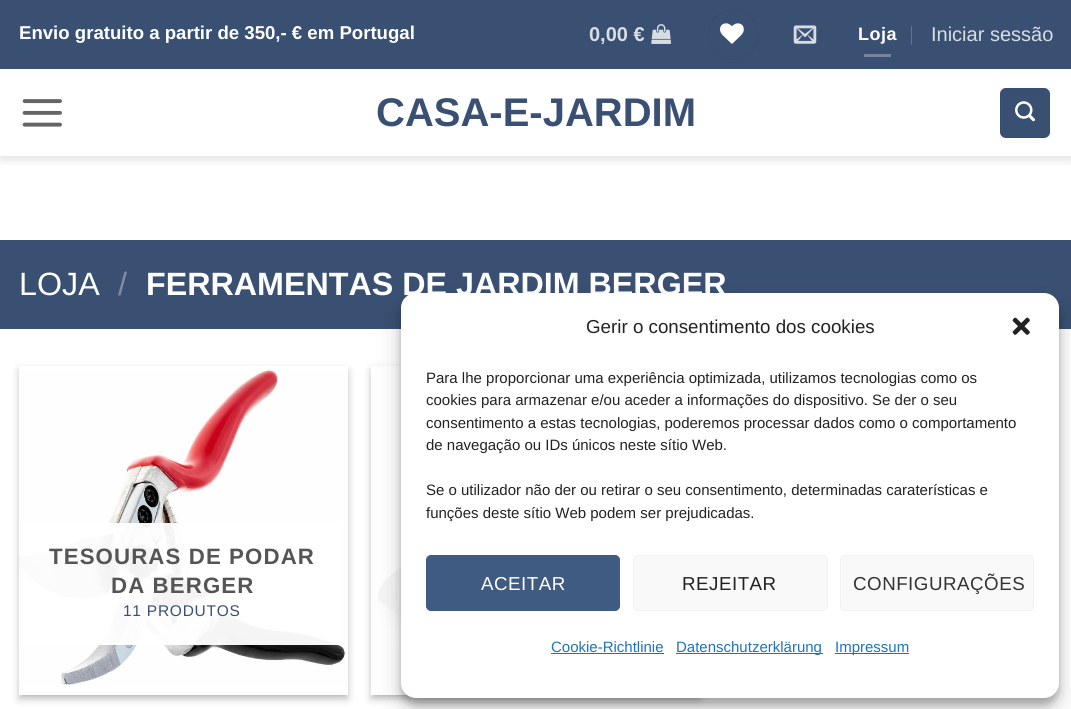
import math
import cairo

surface = cairo.ImageSurface(cairo.FORMAT_RGB24, 1071, 709)
ctx = cairo.Context(surface)
options = cairo.FontOptions()
options.set_hint_metrics(cairo.HINT_METRICS_OFF)
options.set_hint_style(cairo.HINT_STYLE_NONE)
ctx.set_font_options(options)
ctx.set_miter_limit(4)


def spaced_text(x, y, s, letter, word):
    ctx.move_to(x, y)
    for ch in s:
        ctx.show_text(ch)
        ctx.rel_move_to(letter + word * (ch == ' '), 0)


def round_rect(x, y, w, h, r):
    ctx.new_sub_path()
    for i, (u, v) in enumerate([(x + w - r, y + h - r), (x + r, y + h - r), (x + r, y + r), (x + w - r, y + r)]):
        ctx.arc(u, v, r, i * math.pi / 2, (i + 1) * math.pi / 2)
    ctx.close_path()


def shadow(x, y, w, h, r, blur, alpha):
    ctx.push_group_with_content(cairo.CONTENT_ALPHA)
    ctx.set_operator(cairo.OPERATOR_SOURCE)
    for i in range(15, -16, -2):
        e = blur * i / 6
        if min(w, h) + 2 * e > 0:
            ctx.set_source_rgba(0, 0, 0, alpha * math.erfc((i - 1) / 8.5) / 2)
            round_rect(x - e, y - e, w + 2 * e, h + 2 * e, max(0, min(r + e + blur * .6, min(w, h) / 2 + e)))
            ctx.fill()
    ctx.mask(ctx.pop_group())


def picture(path, x, y, w, h):
    ctx.save()
    ctx.set_source_surface(cairo.ImageSurface.create_from_png(path), x, y)
    ctx.rectangle(x, y, w, h)
    ctx.fill()
    ctx.restore()


ctx.set_source_rgb(1, 1, 1)
ctx.paint()
ctx.save()
ctx.rectangle(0, 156, 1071, 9)
ctx.clip()
ctx.set_source_rgb(0, 0, 0)
shadow(1, 1, 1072, 157, 0, 6, 0.15)
ctx.restore()
ctx.set_source_rgb(0.227, 0.314, 0.451)
ctx.rectangle(0, 0, 1071, 69)
ctx.fill()
ctx.select_font_face("Liberation Sans", cairo.FONT_SLANT_NORMAL, cairo.FONT_WEIGHT_BOLD)
ctx.set_font_size(18.6)
ctx.set_source_rgb(1, 1, 1)
ctx.move_to(19, 39)
ctx.show_text("Envio gratuito a partir de 350,- € em Portugal")
ctx.set_font_size(20)
ctx.set_source_rgb(0.847, 0.863, 0.89)
ctx.move_to(589, 41)
ctx.show_text("0,00 €")
picture("img1.png", 651, 24, 21, 20)
round_rect(708.5, 9.5, 49, 50, 24.5)
ctx.set_source_rgb(0.216, 0.298, 0.427)
ctx.set_line_width(1)
ctx.stroke()
picture("img2.png", 720, 23, 24, 21)
picture("img3.png", 793, 25, 24, 19)
ctx.set_font_size(18)
ctx.set_source_rgb(1, 1, 1)
spaced_text(858, 40, "Loja", 0.5, 0)
ctx.set_source_rgb(0.459, 0.522, 0.616)
ctx.rectangle(864, 54, 27, 3)
ctx.fill()
ctx.set_source_rgb(0.38, 0.451, 0.561)
ctx.rectangle(911, 26, 1, 19)
ctx.fill()
ctx.select_font_face("Liberation Sans")
ctx.set_font_size(20)
ctx.set_source_rgb(0.847, 0.863, 0.89)
ctx.move_to(931, 41)
ctx.show_text("Iniciar sessão")
picture("img4.png", 22, 99, 40, 28)
ctx.select_font_face("Liberation Sans", cairo.FONT_SLANT_NORMAL, cairo.FONT_WEIGHT_BOLD)
ctx.set_font_size(40)
ctx.set_source_rgb(0.227, 0.314, 0.451)
ctx.move_to(376, 126)
ctx.show_text("CASA-E-JARDIM")
round_rect(1000, 88, 50, 50, 6)
ctx.fill()
ctx.rectangle(1000.5, 88.5, 49, 49)
ctx.set_source_rgba(0, 0, 0, 0.05)
ctx.stroke()
picture("img5.png", 1015, 101, 20, 21)
ctx.set_source_rgb(0.227, 0.314, 0.451)
ctx.rectangle(0, 240, 1071, 89)
ctx.fill()
ctx.select_font_face("Liberation Sans")
ctx.set_font_size(32.25)
ctx.set_source_rgb(1, 1, 1)
ctx.move_to(19, 295)
ctx.show_text("LOJA")
ctx.set_source_rgb(0.498, 0.553, 0.643)
ctx.move_to(118, 295)
ctx.show_text("/")
ctx.select_font_face("Liberation Sans", cairo.FONT_SLANT_NORMAL, cairo.FONT_WEIGHT_BOLD)
ctx.set_source_rgb(1, 1, 1)
ctx.move_to(146, 295)
ctx.show_text("FERRAMENTAS DE JARDIM BERGER")
ctx.set_source_rgb(0, 0, 0)
shadow(19, 370, 329, 329, 0, 4, 0.23)
shadow(24, 375, 319, 319, 0, 4, 0.16)
ctx.set_source_rgb(1, 1, 1)
ctx.rectangle(19, 366, 329, 329)
ctx.fill()
picture("img6.png", 18, 370, 327, 316)
ctx.set_source_rgba(1, 1, 1, 0.95)
ctx.rectangle(19, 523, 322, 122)
ctx.fill()
ctx.set_font_size(22.25)
ctx.set_source_rgb(0.333, 0.333, 0.333)
spaced_text(49, 564, "TESOURAS DE PODAR", 1.1, 0)
spaced_text(111, 593, "DA BERGER", 1.1, 0)
ctx.select_font_face("Liberation Sans")
ctx.set_font_size(15.5)
ctx.set_source_rgb(0.227, 0.314, 0.451)
spaced_text(123, 616, "11 PRODUTOS", 0.75, 0)
ctx.set_source_rgb(0, 0, 0)
shadow(371, 370, 329, 329, 0, 4, 0.23)
shadow(376, 375, 319, 319, 0, 4, 0.16)
ctx.set_source_rgb(1, 1, 1)
ctx.rectangle(371, 366, 36, 329)
ctx.fill()
picture("img7.png", 371, 396, 31, 292)
ctx.set_source_rgba(1, 1, 1, 0.95)
ctx.rectangle(371, 566, 30, 72)
ctx.fill()
ctx.set_source_rgb(0, 0, 0)
shadow(401, 300, 658, 405, 15, 4, 0.23)
shadow(401, 305, 658, 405, 15, 12.5, 0.19)
ctx.set_source_rgb(1, 1, 1)
round_rect(401, 293, 658, 405, 15)
ctx.fill()
ctx.set_font_size(18.75)
ctx.set_source_rgb(0.133, 0.133, 0.133)
ctx.move_to(586, 333)
ctx.show_text("Gerir o consentimento dos cookies")
picture("img8.png", 1012, 317, 18, 18)
ctx.set_font_size(15)
ctx.move_to(426, 383)
ctx.show_text("Para lhe proporcionar uma experiência optimizada, utilizamos tecnologias como os")
ctx.move_to(426, 405)
ctx.show_text("cookies para armazenar e/ou aceder a informações do dispositivo. Se der o seu")
ctx.move_to(426, 428)
ctx.show_text("consentimento a estas tecnologias, poderemos processar dados como o comportamento")
ctx.move_to(426, 450)
ctx.show_text("de navegação ou IDs únicos neste sítio Web.")
ctx.move_to(426, 495)
ctx.show_text("Se o utilizador não der ou retirar o seu consentimento, determinadas caraterísticas e")
ctx.move_to(426, 518)
ctx.show_text("funções deste sítio Web podem ser prejudicadas.")
ctx.set_source_rgb(0.247, 0.357, 0.506)
round_rect(426.5, 555.5, 193, 55, 4.5)
ctx.fill_preserve()
ctx.stroke()
ctx.set_font_size(18.75)
ctx.set_source_rgb(1, 1, 1)
spaced_text(481, 590, "ACEITAR", 0.5, 0)
ctx.set_source_rgb(0.976, 0.976, 0.976)
round_rect(633.5, 555.5, 194, 55, 4.5)
ctx.fill_preserve()
ctx.set_source_rgb(0.949, 0.949, 0.949)
ctx.stroke()
ctx.set_source_rgb(0.133, 0.133, 0.133)
spaced_text(682, 590, "REJEITAR", 0.5, 0)
ctx.set_source_rgb(0.976, 0.976, 0.976)
round_rect(840.5, 555.5, 193, 55, 4.5)
ctx.fill_preserve()
ctx.set_source_rgb(0.949, 0.949, 0.949)
ctx.stroke()
ctx.set_source_rgb(0.2, 0.2, 0.2)
spaced_text(853, 590, "CONFIGURAÇÕES", 0.5, 0)
ctx.set_font_size(15)
ctx.set_source_rgb(0.118, 0.451, 0.745)
ctx.move_to(551, 652)
ctx.show_text("Cookie-Richtlinie")
ctx.rectangle(551, 653, 113, 1)
ctx.fill()
ctx.rectangle(676, 653, 147, 1)
ctx.fill()
ctx.move_to(676, 652)
ctx.show_text("Datenschutzerklärung")
ctx.rectangle(835, 653, 74, 1)
ctx.fill()
ctx.move_to(835, 652)
ctx.show_text("Impressum")
surface.write_to_png("page.png")
